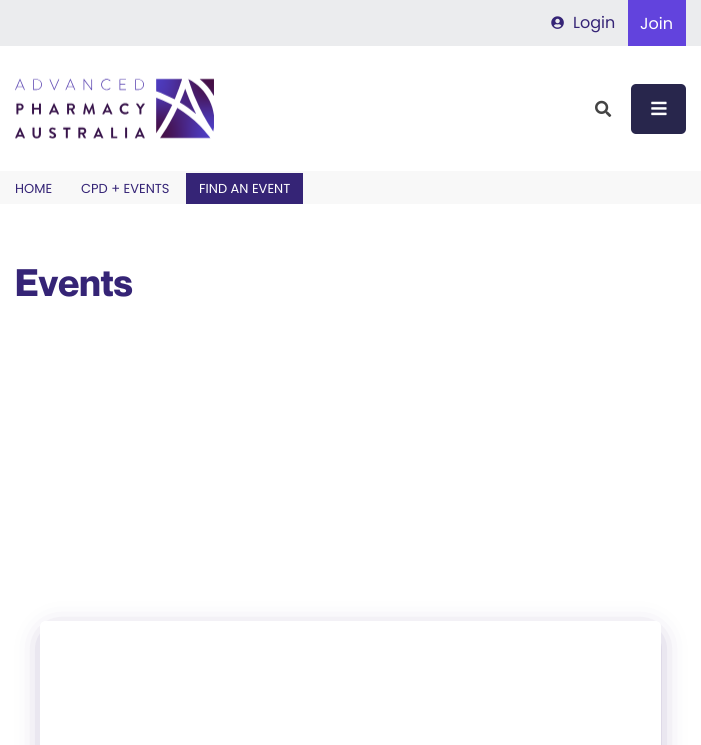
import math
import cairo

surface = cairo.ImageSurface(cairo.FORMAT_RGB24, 701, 745)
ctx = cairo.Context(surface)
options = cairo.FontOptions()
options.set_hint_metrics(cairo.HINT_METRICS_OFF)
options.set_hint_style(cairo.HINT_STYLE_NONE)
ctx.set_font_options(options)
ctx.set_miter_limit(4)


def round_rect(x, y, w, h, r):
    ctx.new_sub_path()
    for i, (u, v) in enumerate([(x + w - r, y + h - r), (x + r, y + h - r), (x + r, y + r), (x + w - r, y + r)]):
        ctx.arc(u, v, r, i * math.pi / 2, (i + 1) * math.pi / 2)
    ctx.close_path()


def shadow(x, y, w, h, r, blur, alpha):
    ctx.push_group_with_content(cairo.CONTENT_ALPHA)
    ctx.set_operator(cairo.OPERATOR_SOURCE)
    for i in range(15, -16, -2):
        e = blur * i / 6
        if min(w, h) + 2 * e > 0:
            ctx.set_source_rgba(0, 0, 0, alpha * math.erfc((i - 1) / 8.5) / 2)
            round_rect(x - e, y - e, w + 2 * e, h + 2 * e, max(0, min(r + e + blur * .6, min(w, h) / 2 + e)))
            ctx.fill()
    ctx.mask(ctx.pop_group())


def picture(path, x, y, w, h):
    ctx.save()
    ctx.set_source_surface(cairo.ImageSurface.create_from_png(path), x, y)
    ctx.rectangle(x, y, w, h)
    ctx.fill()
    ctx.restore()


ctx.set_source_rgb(1, 1, 1)
ctx.paint()
ctx.set_source_rgb(0.918, 0.922, 0.933)
ctx.rectangle(0, 0, 701, 46)
ctx.fill()
picture("img1.png", 551, 16, 13, 13)
ctx.select_font_face("Poppins")
ctx.set_font_size(16)
ctx.set_source_rgb(0.208, 0.141, 0.463)
ctx.move_to(573, 28)
ctx.show_text("Login")
ctx.set_source_rgb(0.384, 0.263, 0.867)
ctx.rectangle(628, 0, 58, 46)
ctx.fill()
ctx.set_source_rgb(1, 1, 1)
ctx.move_to(640, 29)
ctx.show_text("Join")
picture("img2.png", 15, 78, 199, 61)
picture("img3.png", 595, 100, 17, 17)
ctx.set_source_rgb(0.157, 0.149, 0.298)
round_rect(631, 84, 55, 50, 5)
ctx.fill()
picture("img4.png", 651, 101, 16, 15)
ctx.set_source_rgb(0.969, 0.969, 0.969)
ctx.rectangle(0, 171, 701, 33)
ctx.fill()
ctx.set_font_size(13)
ctx.set_source_rgb(0.208, 0.141, 0.463)
ctx.move_to(15, 193)
ctx.show_text("HOME")
ctx.move_to(81, 193)
ctx.show_text("CPD + EVENTS")
ctx.rectangle(186, 173, 117, 31)
ctx.fill()
ctx.set_source_rgb(1, 1, 1)
ctx.move_to(199, 193)
ctx.show_text("FIND AN EVENT")
ctx.select_font_face("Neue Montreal", cairo.FONT_SLANT_NORMAL, cairo.FONT_WEIGHT_BOLD)
ctx.set_font_size(37.5)
ctx.set_source_rgb(0.208, 0.141, 0.463)
ctx.move_to(15, 296)
ctx.show_text("Events")
ctx.save()
ctx.set_fill_rule(cairo.FILL_RULE_EVEN_ODD)
ctx.new_path()
ctx.move_to(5, 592)
ctx.line_to(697, 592)
ctx.line_to(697, 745)
ctx.line_to(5, 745)
ctx.close_path()
ctx.move_to(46, 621)
ctx.line_to(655, 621)
ctx.curve_to(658.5, 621, 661, 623.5, 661, 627)
ctx.line_to(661, 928)
ctx.curve_to(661, 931.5, 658.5, 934, 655, 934)
ctx.line_to(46, 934)
ctx.curve_to(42.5, 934, 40, 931.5, 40, 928)
ctx.line_to(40, 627)
ctx.curve_to(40, 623.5, 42.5, 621, 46, 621)
ctx.close_path()
ctx.clip()
ctx.set_source_rgb(0.133, 0, 0.38)
shadow(53, 640, 596, 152, 0, 15.5, 0.61)
ctx.restore()
surface.write_to_png("page.png")
